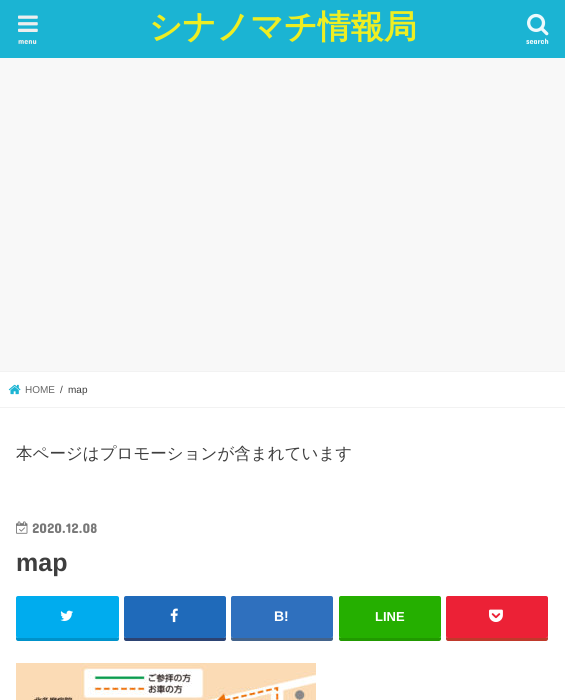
import math
import cairo

surface = cairo.ImageSurface(cairo.FORMAT_RGB24, 565, 700)
ctx = cairo.Context(surface)
options = cairo.FontOptions()
options.set_hint_metrics(cairo.HINT_METRICS_OFF)
options.set_hint_style(cairo.HINT_STYLE_NONE)
ctx.set_font_options(options)
ctx.set_miter_limit(4)


def round_rect(x, y, w, h, r):
    ctx.new_sub_path()
    for i, (u, v) in enumerate([(x + w - r, y + h - r), (x + r, y + h - r), (x + r, y + r), (x + w - r, y + r)]):
        ctx.arc(u, v, r, i * math.pi / 2, (i + 1) * math.pi / 2)
    ctx.close_path()


def shadow(x, y, w, h, r, blur, alpha):
    ctx.push_group_with_content(cairo.CONTENT_ALPHA)
    ctx.set_operator(cairo.OPERATOR_SOURCE)
    for i in range(15, -16, -2):
        e = blur * i / 6
        if min(w, h) + 2 * e > 0:
            ctx.set_source_rgba(0, 0, 0, alpha * math.erfc((i - 1) / 8.5) / 2)
            round_rect(x - e, y - e, w + 2 * e, h + 2 * e, max(0, min(r + e + blur * .6, min(w, h) / 2 + e)))
            ctx.fill()
    ctx.mask(ctx.pop_group())


def picture(path, x, y, w, h):
    ctx.save()
    ctx.set_source_surface(cairo.ImageSurface.create_from_png(path), x, y)
    ctx.rectangle(x, y, w, h)
    ctx.fill()
    ctx.restore()


ctx.set_source_rgb(0.969, 0.969, 0.969)
ctx.paint()
ctx.set_source_rgb(0.106, 0.706, 0.827)
ctx.rectangle(0, 0, 565, 58)
ctx.fill()
picture("img1.png", 18, 15, 20, 17)
ctx.select_font_face("Concert One")
ctx.set_font_size(8)
ctx.set_source_rgb(0.933, 0.933, 0.933)
ctx.move_to(18, 44)
ctx.show_text("menu")
ctx.select_font_face("WenQuanYi Zen Hei", cairo.FONT_SLANT_NORMAL, cairo.FONT_WEIGHT_BOLD)
ctx.set_font_size(33)
ctx.set_source_rgb(0.933, 0.933, 0.133)
ctx.move_to(149, 38)
ctx.show_text("シナノマチ情報局")
picture("img2.png", 527, 13, 22, 23)
ctx.select_font_face("Concert One")
ctx.set_font_size(8)
ctx.set_source_rgb(0.929, 0.976, 0.988)
ctx.move_to(526, 44)
ctx.show_text("search")
ctx.set_source_rgb(0.867, 0.867, 0.867)
shadow(0, 372, 565, 36, 0, 0.5, 1)
ctx.set_source_rgb(1, 1, 1)
ctx.rectangle(0, 372, 565, 35)
ctx.fill()
ctx.set_source_rgb(0.969, 0.969, 0.969)
ctx.rectangle(0, 407, 565, 1)
ctx.fill()
picture("img3.png", 8, 384, 13, 11)
ctx.select_font_face("Liberation Sans")
ctx.set_font_size(10)
ctx.set_source_rgb(0.4, 0.4, 0.4)
ctx.move_to(25, 393)
ctx.show_text("HOME")
ctx.set_source_rgb(0.243, 0.243, 0.243)
ctx.move_to(60, 393)
ctx.show_text("/")
ctx.move_to(68, 393)
ctx.show_text("map")
ctx.set_source_rgb(0.867, 0.867, 0.867)
shadow(0, 408, 565, 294, 0, 0.5, 1)
ctx.set_source_rgb(1, 1, 1)
ctx.rectangle(0, 408, 565, 292)
ctx.fill()
ctx.select_font_face("WenQuanYi Zen Hei Medium")
ctx.set_font_size(16.5)
ctx.set_source_rgb(0.243, 0.243, 0.243)
ctx.move_to(16, 459)
ctx.show_text("本ページはプロモーションが含まれています")
picture("img4.png", 16, 521, 12, 13)
ctx.select_font_face("Concert One")
ctx.set_font_size(14)
ctx.set_source_rgb(0.471, 0.471, 0.471)
ctx.move_to(32, 533)
ctx.show_text("2020.12.08")
ctx.select_font_face("Liberation Sans", cairo.FONT_SLANT_NORMAL, cairo.FONT_WEIGHT_BOLD)
ctx.set_font_size(25)
ctx.set_source_rgb(0.243, 0.243, 0.243)
ctx.move_to(16, 571)
ctx.show_text("map")
ctx.set_source_rgb(0, 0.573, 0.792)
ctx.new_path()
ctx.move_to(16, 636)
ctx.line_to(16, 639)
ctx.curve_to(16, 640, 17, 641, 18, 641)
ctx.line_to(117, 641)
ctx.curve_to(118, 641, 119, 640, 119, 639)
ctx.line_to(119, 636)
ctx.curve_to(119, 637, 118, 638, 117, 638)
ctx.line_to(18, 638)
ctx.line_to(16, 637)
ctx.close_path()
ctx.fill()
ctx.set_source_rgb(0, 0.675, 0.933)
round_rect(16, 596, 103, 42, 2)
ctx.fill()
picture("img5.png", 60, 610, 13, 11)
ctx.set_source_rgb(0.173, 0.263, 0.451)
ctx.new_path()
ctx.move_to(124, 636)
ctx.line_to(124, 639)
ctx.curve_to(124, 640, 125, 641, 126, 641)
ctx.line_to(224, 641)
ctx.curve_to(225, 641, 226, 640, 226, 639)
ctx.line_to(226, 636)
ctx.line_to(226, 637)
ctx.line_to(224, 638)
ctx.line_to(126, 638)
ctx.curve_to(125, 638, 124, 637, 124, 636)
ctx.close_path()
ctx.fill()
ctx.set_source_rgb(0.122, 0.416, 0.729)
round_rect(124, 596, 102, 42, 2)
ctx.fill()
picture("img6.png", 170, 608, 8, 15)
ctx.set_source_rgb(0.263, 0.388, 0.545)
ctx.new_path()
ctx.move_to(231, 636)
ctx.line_to(231, 639)
ctx.curve_to(231, 640, 232, 641, 233, 641)
ctx.line_to(331, 641)
ctx.curve_to(332, 641, 333, 640, 333, 639)
ctx.line_to(333, 636)
ctx.line_to(333, 637)
ctx.line_to(331, 638)
ctx.line_to(233, 638)
ctx.curve_to(232, 638, 231, 637, 231, 636)
ctx.close_path()
ctx.fill()
ctx.set_source_rgb(0.184, 0.439, 0.745)
round_rect(231, 596, 102, 42, 2)
ctx.fill()
ctx.set_font_size(14)
ctx.set_source_rgb(1, 1, 1)
ctx.move_to(274, 621)
ctx.show_text("B!")
ctx.set_source_rgb(0.129, 0.6, 0)
ctx.new_path()
ctx.move_to(339, 636)
ctx.line_to(339, 639)
ctx.curve_to(339, 640, 340, 641, 341, 641)
ctx.line_to(439, 641)
ctx.curve_to(440, 641, 441, 640, 441, 639)
ctx.line_to(441, 636)
ctx.line_to(441, 637)
ctx.line_to(439, 638)
ctx.line_to(341, 638)
ctx.curve_to(340, 638, 339, 637, 339, 636)
ctx.close_path()
ctx.fill()
ctx.set_source_rgb(0.145, 0.686, 0)
round_rect(339, 596, 102, 42, 2)
ctx.fill()
ctx.set_font_size(13)
ctx.set_source_rgb(1, 1, 1)
ctx.move_to(375, 621)
ctx.show_text("LINE")
ctx.set_source_rgb(0.753, 0.224, 0.169)
ctx.new_path()
ctx.move_to(446, 636)
ctx.line_to(446, 639)
ctx.curve_to(446, 640, 447, 641, 448, 641)
ctx.line_to(546, 641)
ctx.curve_to(547, 641, 548, 640, 548, 639)
ctx.line_to(548, 636)
ctx.curve_to(548, 637, 547, 638, 546, 638)
ctx.line_to(448, 638)
ctx.line_to(446, 637)
ctx.close_path()
ctx.fill()
ctx.set_source_rgb(0.925, 0.129, 0.212)
round_rect(446, 596, 102, 42, 2)
ctx.fill()
picture("img7.png", 489, 609, 14, 13)
picture("img8.png", 16, 663, 300, 37)
surface.write_to_png("page.png")
